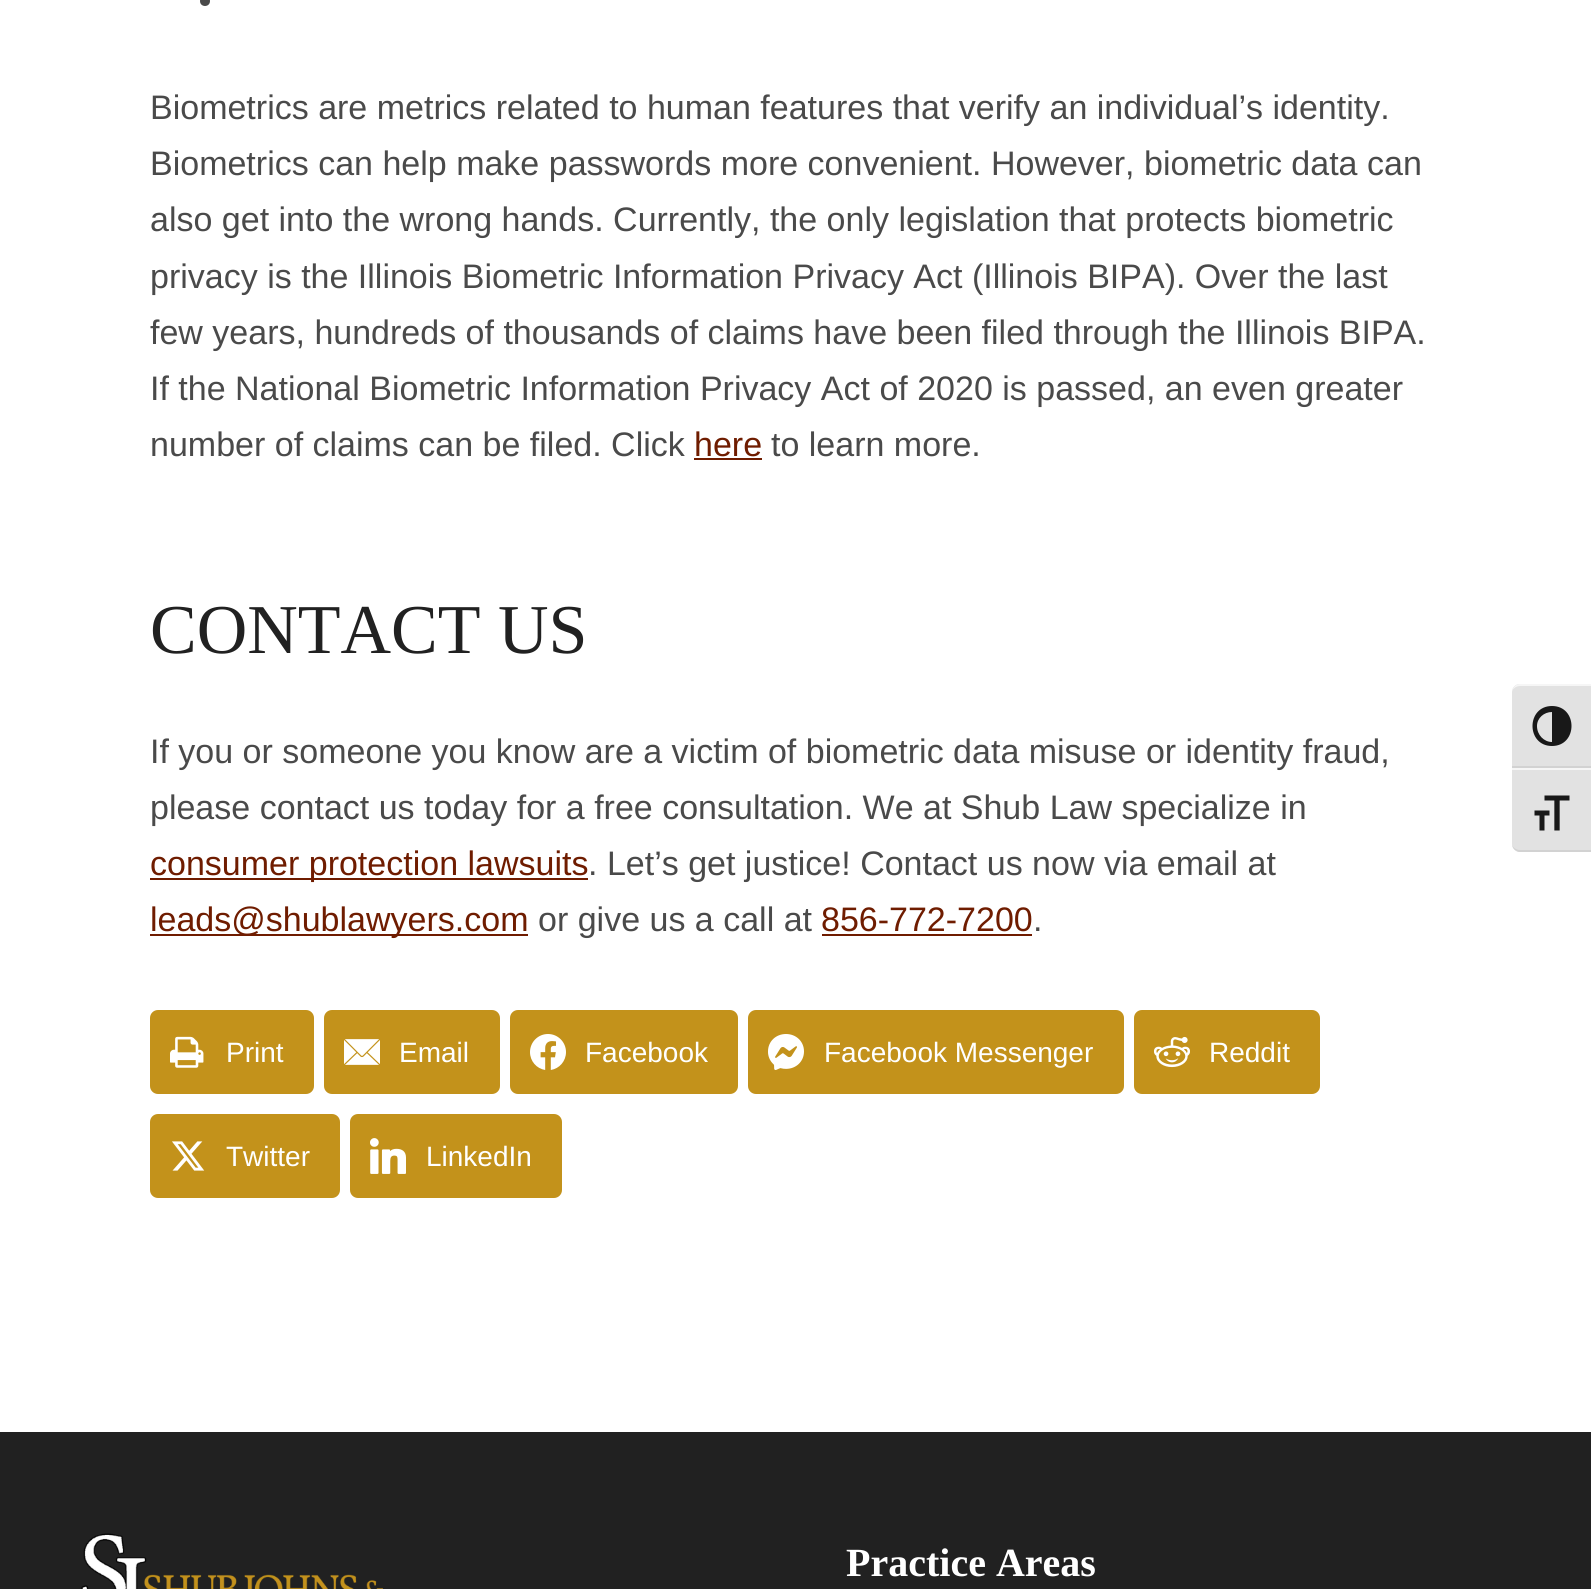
import math
import cairo

surface = cairo.ImageSurface(cairo.FORMAT_RGB24, 1591, 1589)
ctx = cairo.Context(surface)
options = cairo.FontOptions()
options.set_hint_metrics(cairo.HINT_METRICS_OFF)
options.set_hint_style(cairo.HINT_STYLE_NONE)
ctx.set_font_options(options)
ctx.set_miter_limit(4)


def round_rect(x, y, w, h, r):
    ctx.new_sub_path()
    for i, (u, v) in enumerate([(x + w - r, y + h - r), (x + r, y + h - r), (x + r, y + r), (x + w - r, y + r)]):
        ctx.arc(u, v, r, i * math.pi / 2, (i + 1) * math.pi / 2)
    ctx.close_path()


def picture(path, x, y, w, h):
    ctx.save()
    ctx.set_source_surface(cairo.ImageSurface.create_from_png(path), x, y)
    ctx.rectangle(x, y, w, h)
    ctx.fill()
    ctx.restore()


ctx.set_source_rgb(1, 1, 1)
ctx.paint()
ctx.set_source_rgb(0.29, 0.29, 0.29)
ctx.arc(205, 1, 5, 0, 2 * math.pi)
ctx.fill()
ctx.select_font_face("Liberation Sans")
ctx.set_font_size(34)
ctx.move_to(150, 119)
ctx.show_text("Biometrics are metrics related to human features that verify an individual’s identity.")
ctx.move_to(150, 175)
ctx.show_text("Biometrics can help make passwords more convenient. However, biometric data can")
ctx.move_to(150, 231)
ctx.show_text("also get into the wrong hands. Currently, the only legislation that protects biometric")
ctx.move_to(150, 288)
ctx.show_text("privacy is the Illinois Biometric Information Privacy Act (Illinois BIPA). Over the last")
ctx.move_to(150, 344)
ctx.show_text("few years, hundreds of thousands of claims have been filed through the Illinois BIPA.")
ctx.move_to(150, 400)
ctx.show_text("If the National Biometric Information Privacy Act of 2020 is passed, an even greater")
ctx.move_to(150, 456)
ctx.show_text("number of claims can be filed. Click")
ctx.set_source_rgb(0.435, 0.11, 0)
ctx.move_to(694, 456)
ctx.show_text("here")
ctx.rectangle(694, 458, 68, 2)
ctx.fill()
ctx.set_source_rgb(0.29, 0.29, 0.29)
ctx.move_to(771, 456)
ctx.show_text("to learn more.")
ctx.select_font_face("Liberation Serif")
ctx.set_font_size(70)
ctx.set_source_rgb(0.129, 0.129, 0.129)
ctx.move_to(150, 653)
ctx.show_text("CONTACT US")
ctx.select_font_face("Liberation Sans")
ctx.set_font_size(34)
ctx.set_source_rgb(0.29, 0.29, 0.29)
ctx.move_to(150, 763)
ctx.show_text("If you or someone you know are a victim of biometric data misuse or identity fraud,")
ctx.move_to(150, 819)
ctx.show_text("please contact us today for a free consultation. We at Shub Law specialize in")
ctx.set_source_rgb(0.435, 0.11, 0)
ctx.rectangle(150, 878, 438, 2)
ctx.fill()
ctx.move_to(150, 875)
ctx.show_text("consumer protection lawsuits")
ctx.set_source_rgb(0.29, 0.29, 0.29)
ctx.move_to(588, 875)
ctx.show_text(". Let’s get justice! Contact us now via email at")
ctx.set_source_rgb(0.435, 0.11, 0)
ctx.rectangle(150, 934, 378, 2)
ctx.fill()
ctx.move_to(150, 931)
ctx.show_text("leads@shublawyers.com")
ctx.set_source_rgb(0.29, 0.29, 0.29)
ctx.move_to(538, 931)
ctx.show_text("or give us a call at")
ctx.set_source_rgb(0.435, 0.11, 0)
ctx.move_to(821, 931)
ctx.show_text("856-772-7200")
ctx.rectangle(822, 934, 210, 2)
ctx.fill()
ctx.set_source_rgb(0.29, 0.29, 0.29)
ctx.move_to(1033, 931)
ctx.show_text(".")
ctx.set_source_rgb(0.765, 0.573, 0.106)
round_rect(150, 1010, 164, 84, 8)
ctx.fill()
picture("img1.png", 170, 1036, 34, 32)
ctx.set_font_size(28)
ctx.set_source_rgb(1, 1, 1)
ctx.move_to(226, 1062)
ctx.show_text("Print")
ctx.set_source_rgb(0.765, 0.573, 0.106)
round_rect(324, 1010, 176, 84, 8)
ctx.fill()
picture("img2.png", 344, 1039, 36, 26)
ctx.set_source_rgb(1, 1, 1)
ctx.move_to(399, 1062)
ctx.show_text("Email")
ctx.set_source_rgb(0.765, 0.573, 0.106)
round_rect(510, 1010, 228, 84, 8)
ctx.fill()
picture("img3.png", 530, 1034, 36, 36)
ctx.set_source_rgb(1, 1, 1)
ctx.move_to(585, 1062)
ctx.show_text("Facebook")
ctx.set_source_rgb(0.765, 0.573, 0.106)
round_rect(748, 1010, 376, 84, 8)
ctx.fill()
picture("img4.png", 768, 1034, 36, 36)
ctx.set_source_rgb(1, 1, 1)
ctx.move_to(824, 1062)
ctx.show_text("Facebook Messenger")
ctx.set_source_rgb(0.765, 0.573, 0.106)
round_rect(1134, 1010, 186, 84, 8)
ctx.fill()
picture("img5.png", 1154, 1036, 36, 32)
ctx.set_source_rgb(1, 1, 1)
ctx.move_to(1209, 1062)
ctx.show_text("Reddit")
ctx.set_source_rgb(0.765, 0.573, 0.106)
round_rect(150, 1114, 190, 84, 8)
ctx.fill()
picture("img6.png", 172, 1141, 33, 30)
ctx.set_source_rgb(1, 1, 1)
ctx.move_to(226, 1166)
ctx.show_text("Twitter")
ctx.set_source_rgb(0.765, 0.573, 0.106)
round_rect(350, 1114, 212, 84, 8)
ctx.fill()
picture("img7.png", 370, 1138, 36, 36)
ctx.set_source_rgb(1, 1, 1)
ctx.move_to(426, 1166)
ctx.show_text("LinkedIn")
ctx.set_source_rgb(0.129, 0.129, 0.129)
ctx.rectangle(0, 1432, 1591, 157)
ctx.fill()
picture("img8.png", 81, 1533, 302, 56)
ctx.select_font_face("Liberation Serif", cairo.FONT_SLANT_NORMAL, cairo.FONT_WEIGHT_BOLD)
ctx.set_font_size(40)
ctx.set_source_rgb(1, 1, 1)
ctx.move_to(846, 1576)
ctx.show_text("Practice Areas")
ctx.set_source_rgb(0.886, 0.886, 0.886)
ctx.new_path()
ctx.move_to(1520, 684)
ctx.line_to(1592, 684)
ctx.line_to(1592, 768)
ctx.line_to(1512, 768)
ctx.line_to(1512, 692)
ctx.curve_to(1512, 687.5, 1515.5, 684, 1520, 684)
ctx.close_path()
ctx.fill()
ctx.set_source_rgb(0.961, 0.961, 0.961)
ctx.new_path()
ctx.move_to(1520, 686)
ctx.line_to(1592, 686)
ctx.line_to(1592, 684)
ctx.line_to(1520, 684)
ctx.curve_to(1516, 684, 1512, 688, 1512, 692)
ctx.curve_to(1512, 689, 1516, 686, 1520, 686)
ctx.close_path()
ctx.fill()
ctx.set_source_rgb(0.824, 0.824, 0.824)
ctx.rectangle(1512, 766, 79, 2)
ctx.fill()
ctx.set_source_rgb(0.094, 0.094, 0.094)
ctx.new_path()
ctx.move_to(1552, 706)
ctx.curve_to(1526, 706, 1526, 746, 1552, 746)
ctx.curve_to(1578, 746, 1578, 706, 1552, 706)
ctx.close_path()
ctx.move_to(1537, 726)
ctx.curve_to(1537, 718, 1544, 712, 1552, 712)
ctx.line_to(1552, 742)
ctx.curve_to(1544, 742, 1537, 735, 1537, 726)
ctx.close_path()
ctx.fill()
ctx.set_source_rgb(0.886, 0.886, 0.886)
ctx.new_path()
ctx.move_to(1512, 768)
ctx.line_to(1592, 768)
ctx.line_to(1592, 852)
ctx.line_to(1520, 852)
ctx.curve_to(1515.5, 852, 1512, 848.5, 1512, 844)
ctx.close_path()
ctx.fill()
ctx.set_source_rgb(0.961, 0.961, 0.961)
ctx.rectangle(1512, 768, 79, 2)
ctx.fill()
ctx.set_source_rgb(0.824, 0.824, 0.824)
ctx.new_path()
ctx.move_to(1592, 852)
ctx.line_to(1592, 850)
ctx.line_to(1520, 850)
ctx.curve_to(1516, 850, 1512, 847, 1512, 844)
ctx.curve_to(1512, 848, 1516, 852, 1520, 852)
ctx.close_path()
ctx.fill()
picture("img9.png", 1534, 795, 36, 36)
surface.write_to_png("page.png")
